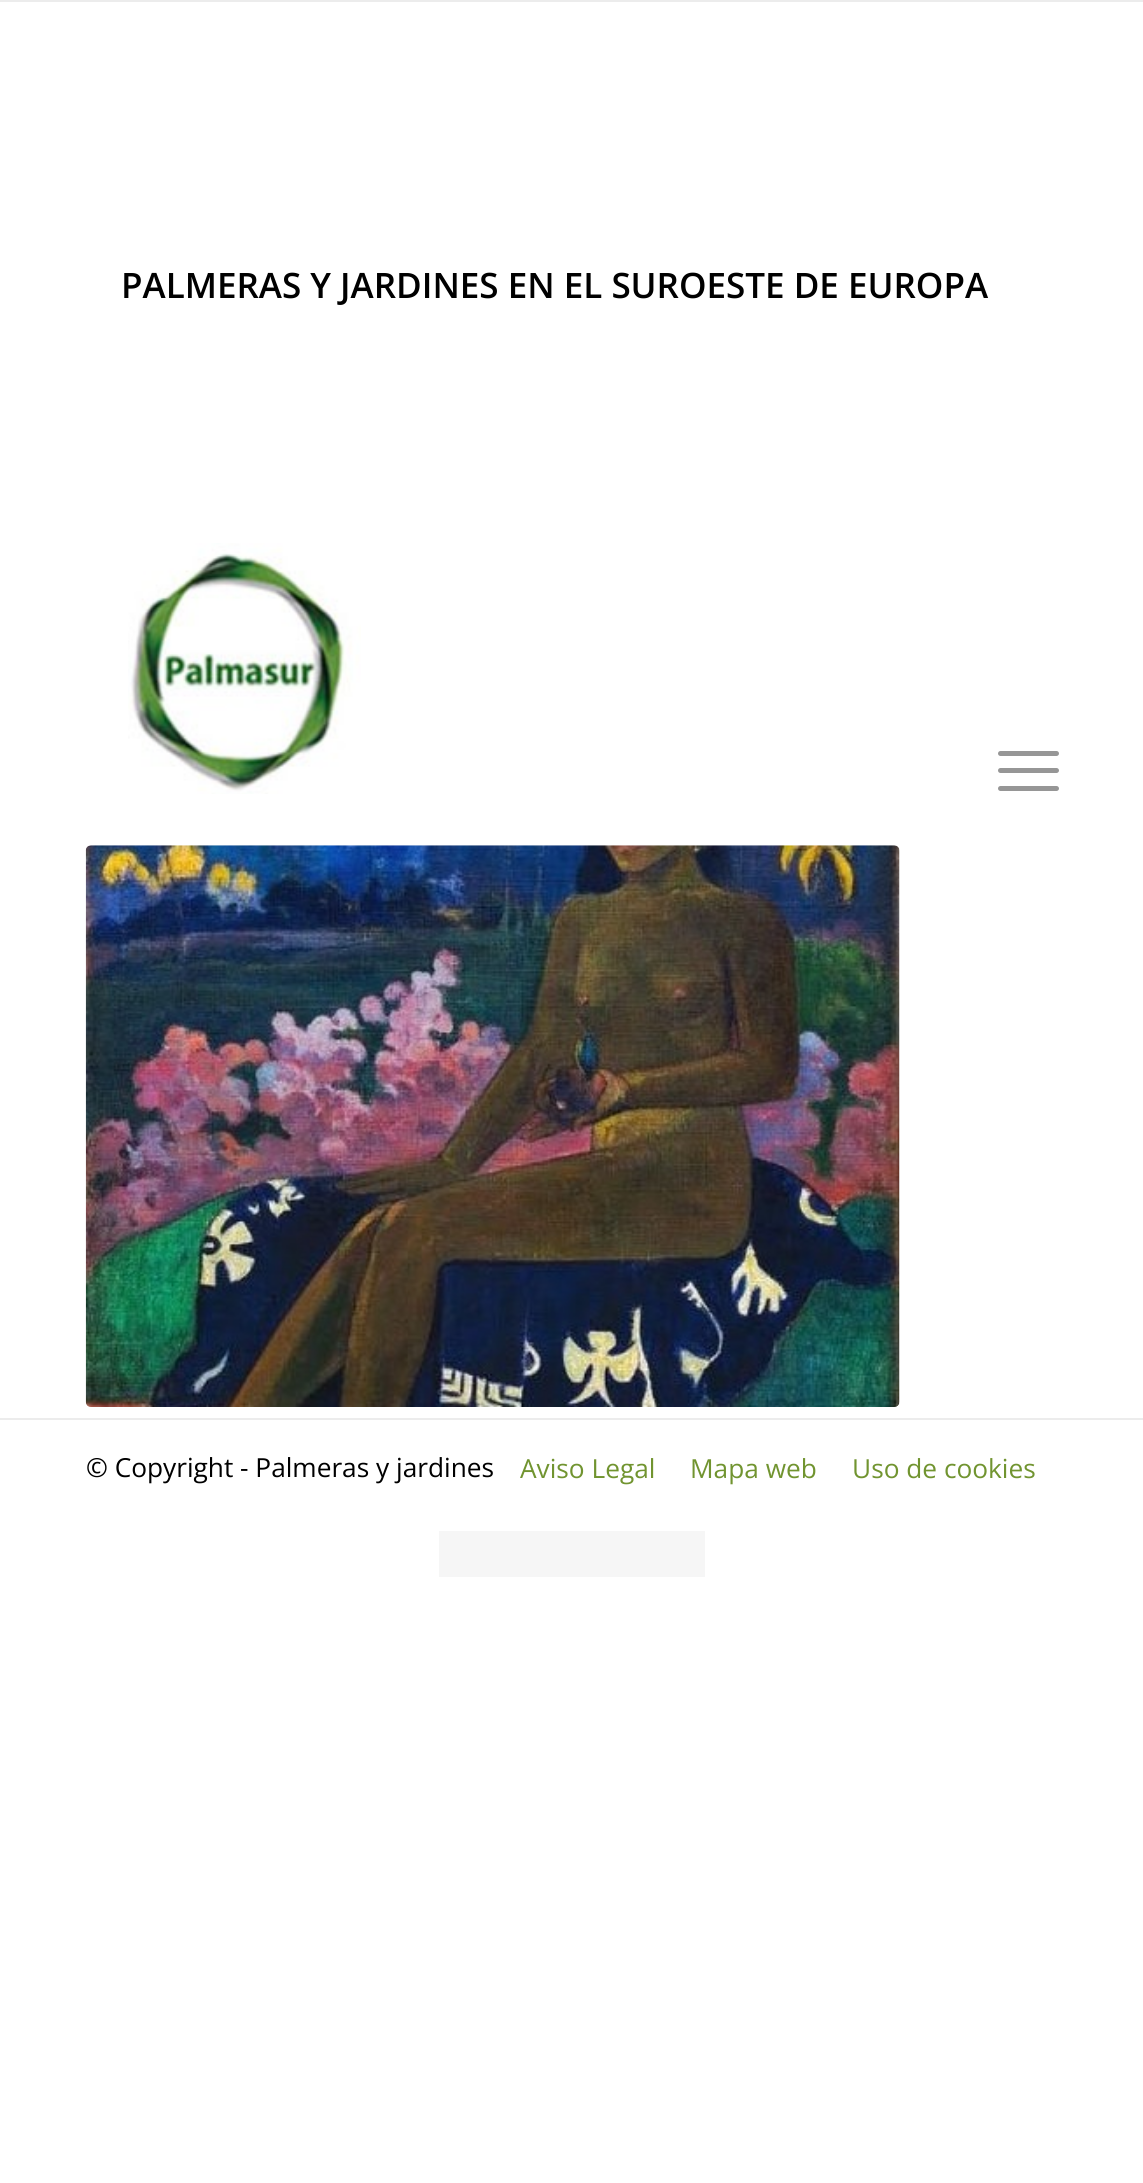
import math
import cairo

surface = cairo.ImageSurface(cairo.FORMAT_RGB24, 1143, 2183)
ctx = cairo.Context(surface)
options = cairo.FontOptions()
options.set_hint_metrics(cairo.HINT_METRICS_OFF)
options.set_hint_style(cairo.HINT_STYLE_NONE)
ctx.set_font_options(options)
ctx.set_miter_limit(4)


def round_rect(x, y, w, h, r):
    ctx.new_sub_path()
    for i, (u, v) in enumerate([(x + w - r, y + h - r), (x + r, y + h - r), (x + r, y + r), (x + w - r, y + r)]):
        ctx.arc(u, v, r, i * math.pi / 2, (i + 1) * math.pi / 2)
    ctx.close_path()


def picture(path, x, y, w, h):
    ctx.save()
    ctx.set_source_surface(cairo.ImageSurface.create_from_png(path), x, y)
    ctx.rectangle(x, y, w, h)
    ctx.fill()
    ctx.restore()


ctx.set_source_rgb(1, 1, 1)
ctx.paint()
ctx.set_source_rgb(0.922, 0.922, 0.922)
ctx.rectangle(0, 0, 1143, 2)
ctx.fill()
ctx.select_font_face("Open Sans SemiBold")
ctx.set_font_size(35)
ctx.set_source_rgb(0, 0, 0)
ctx.move_to(121, 298)
ctx.show_text("PALMERAS Y JARDINES EN EL SUROESTE DE EUROPA")
picture("img1.png", 128, 543, 233, 251)
ctx.set_source_rgb(0.588, 0.588, 0.588)
round_rect(998, 768, 61, 5, 2.5)
ctx.fill()
round_rect(998, 751, 61, 5, 2.5)
ctx.fill()
round_rect(998, 786, 61, 5, 2.5)
ctx.fill()
picture("img2.png", 85, 845, 815, 562)
ctx.set_source_rgb(0.922, 0.922, 0.922)
ctx.rectangle(0, 1418, 1143, 2)
ctx.fill()
ctx.select_font_face("Open Sans")
ctx.set_font_size(26.25)
ctx.set_source_rgb(0, 0, 0)
ctx.move_to(86, 1477)
ctx.show_text("© Copyright - Palmeras y jardines")
ctx.set_source_rgb(0.443, 0.58, 0.188)
ctx.move_to(520, 1478)
ctx.show_text("Aviso Legal")
ctx.move_to(690, 1478)
ctx.show_text("Mapa web")
ctx.move_to(852, 1478)
ctx.show_text("Uso de cookies")
ctx.set_source_rgb(0.961, 0.961, 0.961)
ctx.rectangle(439, 1531, 266, 46)
ctx.fill()
surface.write_to_png("page.png")
